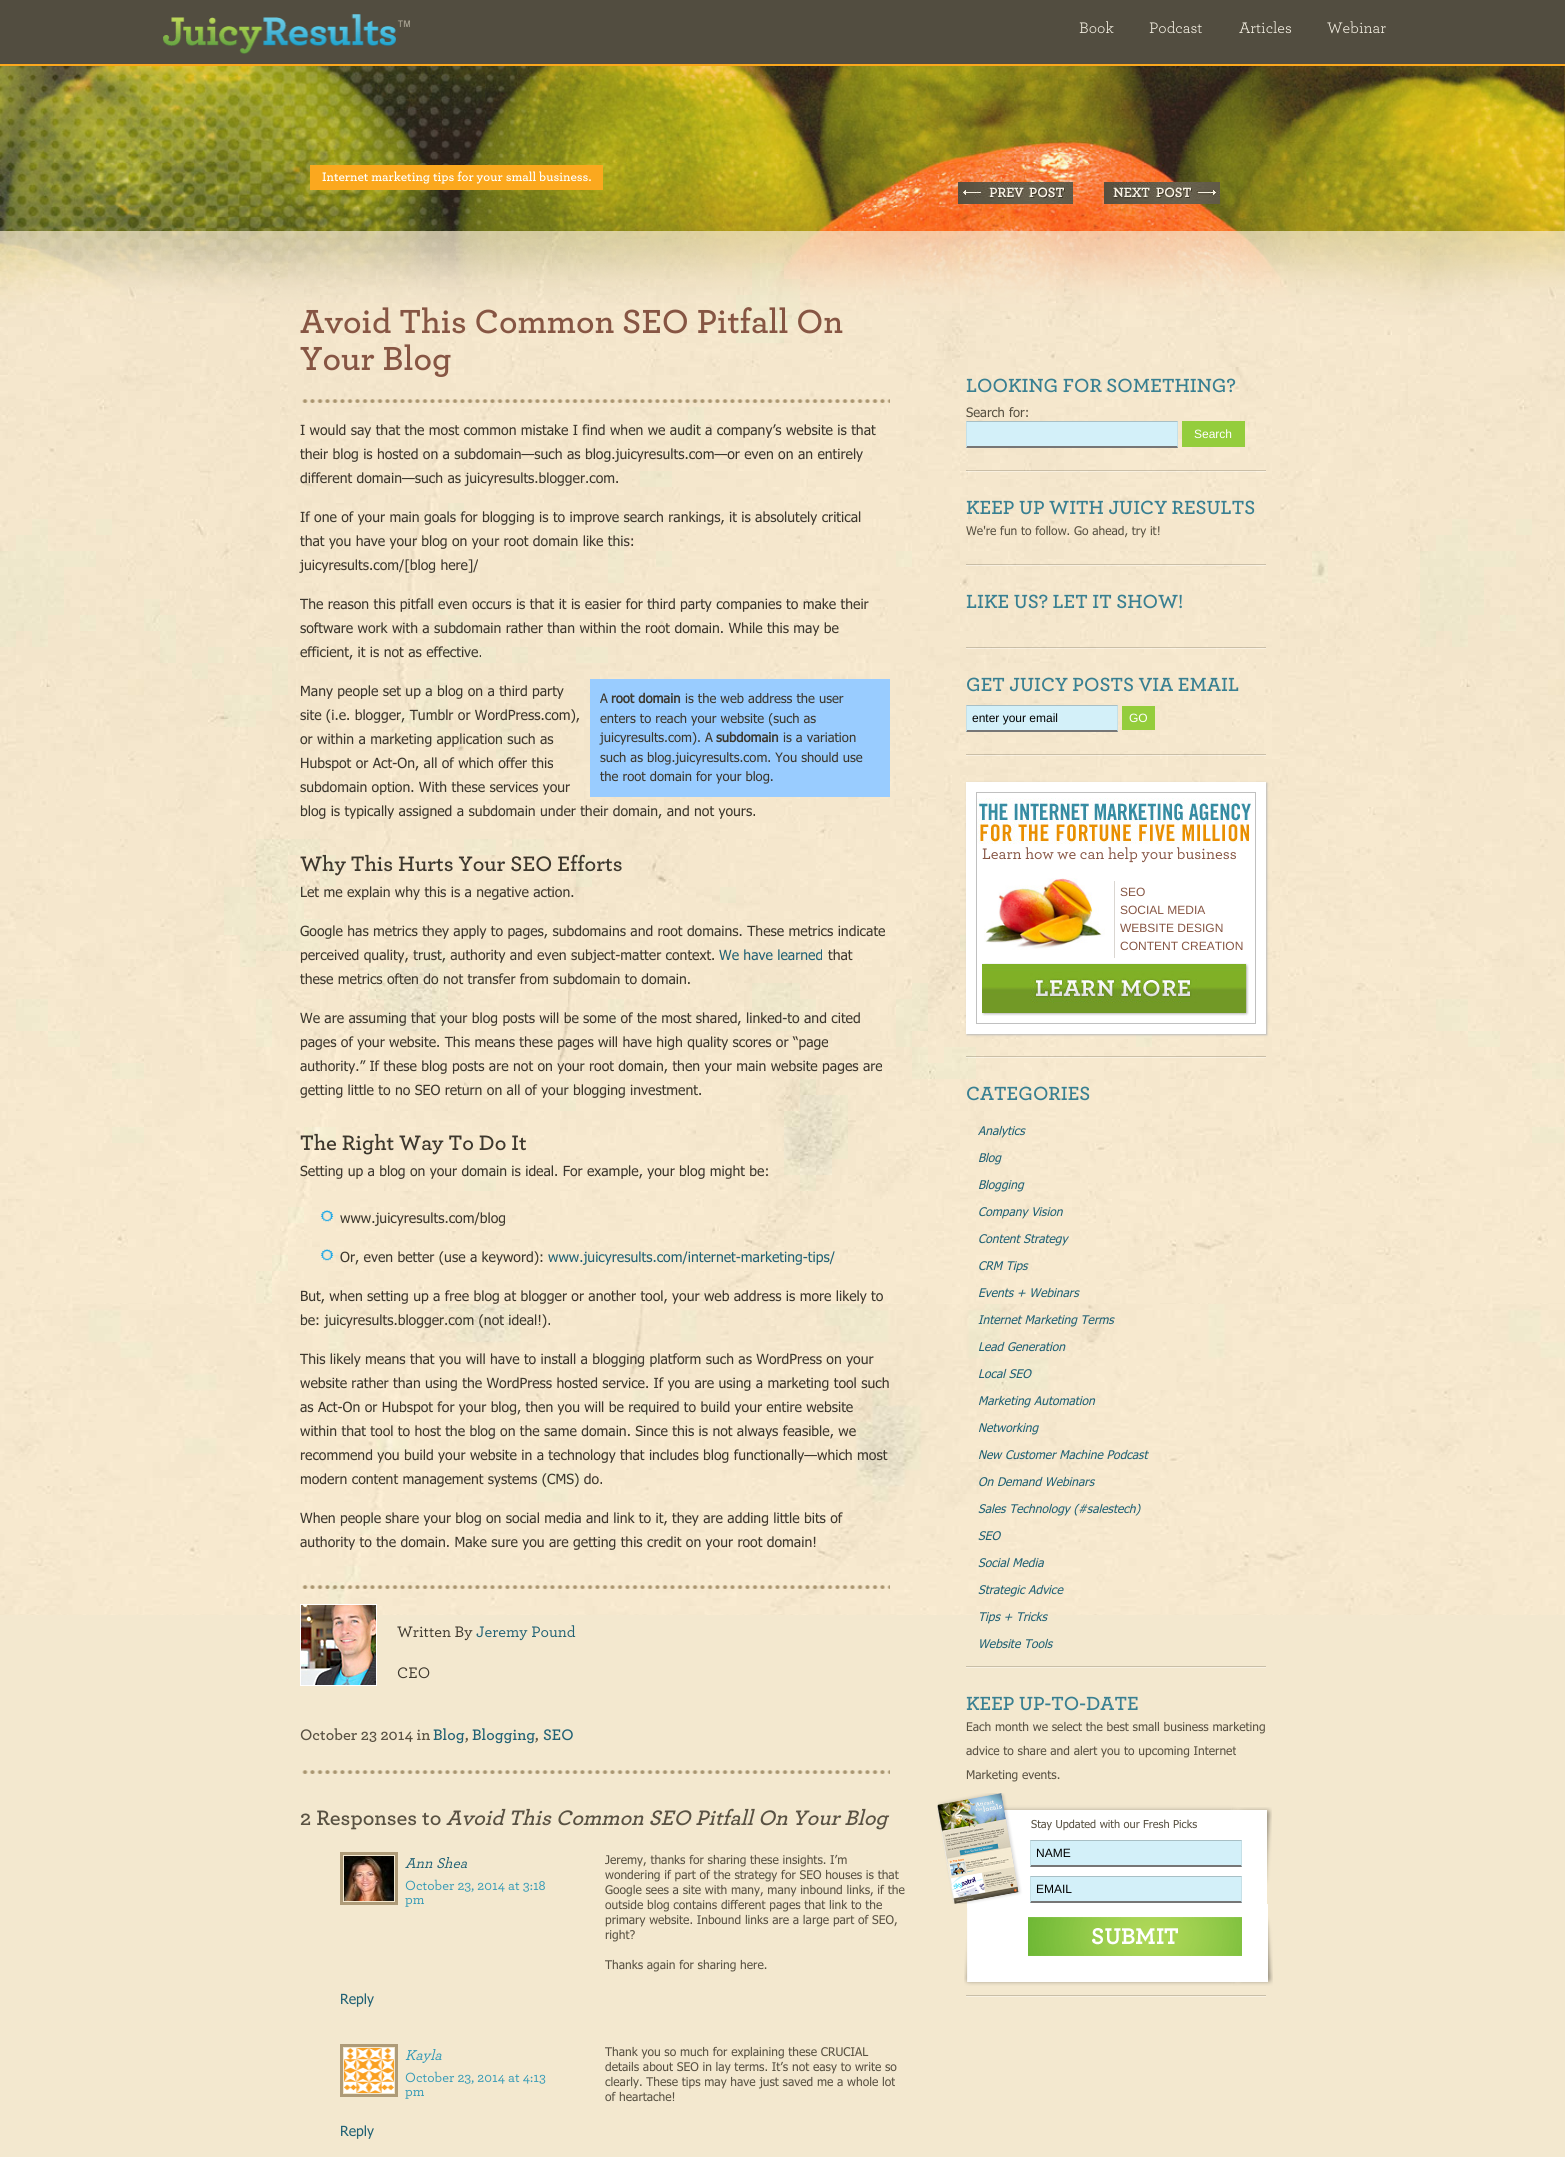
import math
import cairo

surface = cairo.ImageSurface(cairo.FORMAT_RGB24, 1565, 2157)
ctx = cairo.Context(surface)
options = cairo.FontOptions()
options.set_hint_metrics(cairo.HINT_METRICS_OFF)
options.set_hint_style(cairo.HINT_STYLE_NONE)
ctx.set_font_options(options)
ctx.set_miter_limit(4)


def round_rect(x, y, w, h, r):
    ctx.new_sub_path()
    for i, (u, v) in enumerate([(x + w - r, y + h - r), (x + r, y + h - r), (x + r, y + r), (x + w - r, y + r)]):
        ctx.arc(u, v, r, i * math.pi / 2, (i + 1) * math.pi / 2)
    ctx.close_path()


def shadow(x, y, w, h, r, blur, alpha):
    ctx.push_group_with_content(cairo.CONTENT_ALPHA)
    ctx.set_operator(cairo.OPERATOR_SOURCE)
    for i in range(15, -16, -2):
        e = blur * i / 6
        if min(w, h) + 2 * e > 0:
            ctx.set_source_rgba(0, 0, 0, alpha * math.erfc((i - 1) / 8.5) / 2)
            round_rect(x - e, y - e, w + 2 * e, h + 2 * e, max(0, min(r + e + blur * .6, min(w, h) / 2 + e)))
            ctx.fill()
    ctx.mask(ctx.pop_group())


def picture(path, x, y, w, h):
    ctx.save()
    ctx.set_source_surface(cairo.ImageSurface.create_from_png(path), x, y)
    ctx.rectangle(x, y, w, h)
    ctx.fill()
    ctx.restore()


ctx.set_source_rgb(0.953, 0.91, 0.812)
ctx.paint()
picture("img1.png", 0, 1304, 1565, 311)
picture("img4.png", 0, 66, 1565, 258)
picture("img2.png", 0, 315, 1480, 9)
ctx.set_source_rgb(0.322, 0.302, 0.251)
ctx.rectangle(0, 0, 1565, 64)
ctx.fill()
ctx.set_source_rgb(0.984, 0.659, 0.118)
ctx.rectangle(0, 64, 1565, 2)
ctx.fill()
picture("img3.png", 163, 14, 247, 40)
ctx.select_font_face("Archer")
ctx.set_font_size(16)
ctx.set_source_rgb(0.976, 0.957, 0.906)
ctx.move_to(1079, 33)
ctx.show_text("Book")
ctx.move_to(1149, 33)
ctx.show_text("Podcast")
ctx.move_to(1239, 33)
ctx.show_text("Articles")
ctx.move_to(1327, 33)
ctx.show_text("Webinar")
ctx.set_source_rgb(0.984, 0.659, 0.118)
ctx.rectangle(310, 165, 293, 25)
ctx.fill()
ctx.select_font_face("Archer SemiBold")
ctx.set_font_size(13)
ctx.set_source_rgb(1, 1, 1)
ctx.move_to(322, 181)
ctx.show_text("Internet marketing tips for your small business.")
picture("img5.png", 0, 231, 1565, 1073)
picture("img6.png", 958, 182, 115, 22)
picture("img7.png", 1104, 182, 116, 22)
picture("img8.png", 302, 399, 588, 4)
ctx.set_font_size(35)
ctx.set_source_rgb(0.525, 0.333, 0.263)
ctx.move_to(300, 333)
ctx.show_text("Avoid This Common SEO Pitfall On")
ctx.move_to(300, 370)
ctx.show_text("Your Blog")
picture("img9.png", 302, 1585, 588, 4)
ctx.select_font_face("Tahoma")
ctx.set_font_size(14)
ctx.set_source_rgb(0.235, 0.216, 0.176)
ctx.move_to(300, 435)
ctx.show_text("I would say that the most common mistake I find when we audit a company’s website is that")
ctx.move_to(300, 459)
ctx.show_text("their blog is hosted on a subdomain—such as blog.juicyresults.com—or even on an entirely")
ctx.move_to(300, 483)
ctx.show_text("different domain—such as juicyresults.blogger.com.")
ctx.move_to(300, 522)
ctx.show_text("If one of your main goals for blogging is to improve search rankings, it is absolutely critical")
ctx.move_to(300, 546)
ctx.show_text("that you have your blog on your root domain like this:")
ctx.move_to(300, 570)
ctx.show_text("juicyresults.com/[blog here]/")
ctx.move_to(300, 609)
ctx.show_text("The reason this pitfall even occurs is that it is easier for third party companies to make their")
ctx.move_to(300, 633)
ctx.show_text("software work with a subdomain rather than within the root domain. While this may be")
ctx.move_to(300, 657)
ctx.show_text("efficient, it is not as effective.")
ctx.move_to(300, 696)
ctx.show_text("Many people set up a blog on a third party")
ctx.move_to(300, 720)
ctx.show_text("site (i.e. blogger, Tumblr or WordPress.com),")
ctx.move_to(300, 744)
ctx.show_text("or within a marketing application such as")
ctx.move_to(300, 768)
ctx.show_text("Hubspot or Act-On, all of which offer this")
ctx.move_to(300, 792)
ctx.show_text("subdomain option. With these services your")
ctx.move_to(300, 816)
ctx.show_text("blog is typically assigned a subdomain under their domain, and not yours.")
ctx.set_source_rgb(0.6, 0.8, 1)
ctx.rectangle(590, 679, 300, 118)
ctx.fill()
ctx.set_font_size(13)
ctx.set_source_rgb(0.235, 0.216, 0.176)
ctx.move_to(600, 703)
ctx.show_text("A")
ctx.select_font_face("Tahoma", cairo.FONT_SLANT_NORMAL, cairo.FONT_WEIGHT_BOLD)
ctx.move_to(611, 703)
ctx.show_text("root domain")
ctx.select_font_face("Tahoma")
ctx.move_to(685, 703)
ctx.show_text("is the web address the user")
ctx.move_to(600, 723)
ctx.show_text("enters to reach your website (such as")
ctx.move_to(600, 742)
ctx.show_text("juicyresults.com). A")
ctx.select_font_face("Tahoma", cairo.FONT_SLANT_NORMAL, cairo.FONT_WEIGHT_BOLD)
ctx.move_to(716, 742)
ctx.show_text("subdomain")
ctx.select_font_face("Tahoma")
ctx.move_to(783, 742)
ctx.show_text("is a variation")
ctx.move_to(600, 762)
ctx.show_text("such as blog.juicyresults.com. You should use")
ctx.move_to(600, 781)
ctx.show_text("the root domain for your blog.")
ctx.select_font_face("Archer SemiBold")
ctx.set_font_size(22)
ctx.move_to(300, 871)
ctx.show_text("Why This Hurts Your SEO Efforts")
ctx.select_font_face("Tahoma")
ctx.set_font_size(14)
ctx.move_to(300, 897)
ctx.show_text("Let me explain why this is a negative action.")
ctx.move_to(300, 936)
ctx.show_text("Google has metrics they apply to pages, subdomains and root domains. These metrics indicate")
ctx.move_to(300, 960)
ctx.show_text("perceived quality, trust, authority and even subject-matter context.")
ctx.set_source_rgb(0.125, 0.38, 0.455)
ctx.move_to(719, 960)
ctx.show_text("We have learned")
ctx.set_source_rgb(0.235, 0.216, 0.176)
ctx.move_to(828, 960)
ctx.show_text("that")
ctx.move_to(300, 984)
ctx.show_text("these metrics often do not transfer from subdomain to domain.")
ctx.move_to(300, 1023)
ctx.show_text("We are assuming that your blog posts will be some of the most shared, linked-to and cited")
ctx.move_to(300, 1047)
ctx.show_text("pages of your website. This means these pages will have high quality scores or “page")
ctx.move_to(300, 1071)
ctx.show_text("authority.” If these blog posts are not on your root domain, then your main website pages are")
ctx.move_to(300, 1095)
ctx.show_text("getting little to no SEO return on all of your blogging investment.")
ctx.select_font_face("Archer SemiBold")
ctx.set_font_size(22)
ctx.move_to(300, 1150)
ctx.show_text("The Right Way To Do It")
ctx.select_font_face("Tahoma")
ctx.set_font_size(14)
ctx.move_to(300, 1176)
ctx.show_text("Setting up a blog on your domain is ideal. For example, your blog might be:")
picture("img10.png", 320, 1210, 14, 12)
ctx.move_to(340, 1223)
ctx.show_text("www.juicyresults.com/blog")
picture("img11.png", 320, 1249, 14, 12)
ctx.move_to(340, 1262)
ctx.show_text("Or, even better (use a keyword):")
ctx.set_source_rgb(0.125, 0.38, 0.455)
ctx.move_to(548, 1262)
ctx.show_text("www.juicyresults.com/internet-marketing-tips/")
ctx.set_source_rgb(0.235, 0.216, 0.176)
ctx.move_to(300, 1301)
ctx.show_text("But, when setting up a free blog at blogger or another tool, your web address is more likely to")
ctx.move_to(300, 1325)
ctx.show_text("be: juicyresults.blogger.com (not ideal!).")
ctx.move_to(300, 1364)
ctx.show_text("This likely means that you will have to install a blogging platform such as WordPress on your")
ctx.move_to(300, 1388)
ctx.show_text("website rather than using the WordPress hosted service. If you are using a marketing tool such")
ctx.move_to(300, 1412)
ctx.show_text("as Act-On or Hubspot for your blog, then you will be required to build your entire website")
ctx.move_to(300, 1436)
ctx.show_text("within that tool to host the blog on the same domain. Since this is not always feasible, we")
ctx.move_to(300, 1460)
ctx.show_text("recommend you build your website in a technology that includes blog functionally—which most")
ctx.move_to(300, 1484)
ctx.show_text("modern content management systems (CMS) do.")
ctx.move_to(300, 1523)
ctx.show_text("When people share your blog on social media and link to it, they are adding little bits of")
ctx.move_to(300, 1547)
ctx.show_text("authority to the domain. Make sure you are getting this credit on your root domain!")
picture("img12.png", 302, 1770, 588, 4)
ctx.rectangle(300.5, 1604.5, 76, 81)
ctx.set_source_rgb(1, 1, 1)
ctx.set_line_width(1)
ctx.stroke()
picture("img13.png", 301, 1605, 75, 80)
ctx.select_font_face("Archer Medium")
ctx.set_font_size(16)
ctx.set_source_rgb(0.235, 0.216, 0.176)
ctx.move_to(397, 1637)
ctx.show_text("Written By")
ctx.set_source_rgb(0.125, 0.38, 0.455)
ctx.move_to(476, 1637)
ctx.show_text("Jeremy Pound")
ctx.set_source_rgb(0.235, 0.216, 0.176)
ctx.move_to(397, 1678)
ctx.show_text("CEO")
ctx.select_font_face("Archer SemiBold")
ctx.set_source_rgb(0.345, 0.318, 0.259)
ctx.move_to(300, 1740)
ctx.show_text("October 23 2014 in")
ctx.set_source_rgb(0.125, 0.38, 0.455)
ctx.move_to(433, 1740)
ctx.show_text("Blog")
ctx.set_source_rgb(0.345, 0.318, 0.259)
ctx.move_to(465, 1740)
ctx.show_text(",")
ctx.set_source_rgb(0.125, 0.38, 0.455)
ctx.move_to(472, 1740)
ctx.show_text("Blogging")
ctx.set_source_rgb(0.345, 0.318, 0.259)
ctx.move_to(535, 1740)
ctx.show_text(",")
ctx.set_source_rgb(0.125, 0.38, 0.455)
ctx.move_to(543, 1740)
ctx.show_text("SEO")
ctx.set_font_size(22)
ctx.set_source_rgb(0.345, 0.318, 0.259)
ctx.move_to(300, 1825)
ctx.show_text("2 Responses to")
ctx.select_font_face("Archer SemiBold", cairo.FONT_SLANT_ITALIC)
ctx.move_to(446, 1825)
ctx.show_text("Avoid This Common SEO Pitfall On Your Blog")
ctx.rectangle(341.5, 1853.5, 55, 50)
ctx.set_source_rgb(0.682, 0.608, 0.471)
ctx.set_line_width(3)
ctx.stroke()
picture("img14.png", 344, 1856, 50, 45)
ctx.select_font_face("Archer Medium", cairo.FONT_SLANT_ITALIC)
ctx.set_font_size(15)
ctx.set_source_rgb(0.125, 0.38, 0.455)
ctx.move_to(405, 1868)
ctx.show_text("Ann Shea")
ctx.select_font_face("Archer Medium")
ctx.set_font_size(14)
ctx.set_source_rgb(0.196, 0.6, 0.714)
ctx.move_to(405, 1890)
ctx.show_text("October 23, 2014 at 3:18")
ctx.move_to(405, 1904)
ctx.show_text("pm")
ctx.select_font_face("Tahoma")
ctx.set_font_size(12)
ctx.set_source_rgb(0.345, 0.318, 0.259)
ctx.move_to(605, 1864)
ctx.show_text("Jeremy, thanks for sharing these insights. I’m")
ctx.move_to(605, 1879)
ctx.show_text("wondering if part of the strategy for SEO houses is that")
ctx.move_to(605, 1894)
ctx.show_text("Google sees a site with many, many inbound links, if the")
ctx.move_to(605, 1909)
ctx.show_text("outside blog contains different pages that link to the")
ctx.move_to(605, 1924)
ctx.show_text("primary website. Inbound links are a large part of SEO,")
ctx.move_to(605, 1939)
ctx.show_text("right?")
ctx.move_to(605, 1969)
ctx.show_text("Thanks again for sharing here.")
ctx.set_font_size(14)
ctx.set_source_rgb(0.125, 0.38, 0.455)
ctx.move_to(340, 2004)
ctx.show_text("Reply")
ctx.rectangle(341.5, 2045.5, 55, 50)
ctx.set_source_rgb(0.682, 0.608, 0.471)
ctx.stroke()
picture("img15.png", 344, 2048, 50, 45)
ctx.select_font_face("Archer Medium", cairo.FONT_SLANT_ITALIC)
ctx.set_font_size(15)
ctx.set_source_rgb(0.196, 0.6, 0.714)
ctx.move_to(405, 2060)
ctx.show_text("Kayla")
ctx.select_font_face("Archer Medium")
ctx.set_font_size(14)
ctx.move_to(405, 2082)
ctx.show_text("October 23, 2014 at 4:13")
ctx.move_to(405, 2096)
ctx.show_text("pm")
ctx.select_font_face("Tahoma")
ctx.set_font_size(12)
ctx.set_source_rgb(0.345, 0.318, 0.259)
ctx.move_to(605, 2056)
ctx.show_text("Thank you so much for explaining these CRUCIAL")
ctx.move_to(605, 2071)
ctx.show_text("details about SEO in lay terms. It’s not easy to write so")
ctx.move_to(605, 2086)
ctx.show_text("clearly. These tips may have just saved me a whole lot")
ctx.move_to(605, 2101)
ctx.show_text("of heartache!")
ctx.set_font_size(14)
ctx.set_source_rgb(0.125, 0.38, 0.455)
ctx.move_to(340, 2136)
ctx.show_text("Reply")
picture("img16.png", 966, 470, 300, 2)
ctx.select_font_face("Archer SemiBold")
ctx.set_font_size(20)
ctx.set_source_rgb(0.22, 0.498, 0.569)
ctx.move_to(966, 392)
ctx.show_text("LOOKING FOR SOMETHING?")
ctx.select_font_face("Tahoma")
ctx.set_font_size(13)
ctx.set_source_rgb(0.345, 0.318, 0.259)
ctx.move_to(966, 417)
ctx.show_text("Search for:")
ctx.set_source_rgb(0.827, 0.941, 0.973)
ctx.rectangle(966, 422, 212, 26)
ctx.fill()
ctx.set_source_rgb(0.659, 0.749, 0.773)
ctx.rectangle(966, 421, 212, 1)
ctx.fill()
ctx.set_source_rgb(0.773, 0.878, 0.906)
ctx.new_path()
ctx.move_to(1178, 421)
ctx.line_to(1178, 448)
ctx.line_to(1177, 446)
ctx.line_to(1177, 422)
ctx.close_path()
ctx.fill()
ctx.set_source_rgb(0.463, 0.463, 0.463)
ctx.new_path()
ctx.move_to(1178, 448)
ctx.line_to(966, 448)
ctx.line_to(967, 446)
ctx.line_to(1177, 446)
ctx.close_path()
ctx.fill()
ctx.set_source_rgb(0.773, 0.878, 0.906)
ctx.new_path()
ctx.move_to(966, 448)
ctx.line_to(966, 421)
ctx.line_to(967, 422)
ctx.line_to(967, 446)
ctx.close_path()
ctx.fill()
ctx.set_source_rgb(0.58, 0.804, 0.235)
ctx.rectangle(1182, 421, 63, 26)
ctx.fill()
ctx.select_font_face("Liberation Sans")
ctx.set_font_size(12)
ctx.set_source_rgb(1, 1, 1)
ctx.move_to(1194, 438)
ctx.show_text("Search")
picture("img17.png", 966, 564, 300, 2)
ctx.select_font_face("Archer SemiBold")
ctx.set_font_size(20)
ctx.set_source_rgb(0.22, 0.498, 0.569)
ctx.move_to(966, 514)
ctx.show_text("KEEP UP WITH JUICY RESULTS")
ctx.select_font_face("Tahoma")
ctx.set_font_size(12)
ctx.set_source_rgb(0.345, 0.318, 0.259)
ctx.move_to(966, 535)
ctx.show_text("We're fun to follow. Go ahead, try it!")
picture("img18.png", 966, 647, 300, 2)
ctx.select_font_face("Archer SemiBold")
ctx.set_font_size(20)
ctx.set_source_rgb(0.22, 0.498, 0.569)
ctx.move_to(966, 608)
ctx.show_text("LIKE US? LET IT SHOW!")
picture("img19.png", 966, 754, 300, 2)
ctx.move_to(966, 691)
ctx.show_text("GET JUICY POSTS VIA EMAIL")
ctx.set_source_rgb(0.827, 0.941, 0.973)
ctx.rectangle(966, 706, 152, 26)
ctx.fill()
ctx.set_source_rgb(0.659, 0.749, 0.773)
ctx.rectangle(966, 705, 152, 1)
ctx.fill()
ctx.set_source_rgb(0.773, 0.878, 0.906)
ctx.new_path()
ctx.move_to(1118, 705)
ctx.line_to(1118, 732)
ctx.line_to(1117, 730)
ctx.line_to(1117, 706)
ctx.close_path()
ctx.fill()
ctx.set_source_rgb(0.463, 0.463, 0.463)
ctx.new_path()
ctx.move_to(1118, 732)
ctx.line_to(966, 732)
ctx.line_to(967, 730)
ctx.line_to(1117, 730)
ctx.close_path()
ctx.fill()
ctx.set_source_rgb(0.773, 0.878, 0.906)
ctx.new_path()
ctx.move_to(966, 732)
ctx.line_to(966, 705)
ctx.line_to(967, 706)
ctx.line_to(967, 730)
ctx.close_path()
ctx.fill()
ctx.select_font_face("Liberation Sans")
ctx.set_font_size(12)
ctx.set_source_rgb(0, 0, 0)
ctx.move_to(972, 722)
ctx.show_text("enter your email")
ctx.set_source_rgb(0.58, 0.804, 0.235)
ctx.rectangle(1122, 706, 33, 24)
ctx.fill()
ctx.set_source_rgb(1, 1, 1)
ctx.move_to(1129, 722)
ctx.show_text("GO")
picture("img20.png", 966, 1056, 300, 2)
ctx.set_source_rgb(0.725, 0.725, 0.725)
shadow(967, 783, 300, 252, 0, 1, 1)
ctx.set_source_rgb(1, 1, 1)
ctx.rectangle(966, 782, 300, 252)
ctx.fill()
ctx.rectangle(976.5, 792.5, 279, 231)
ctx.set_source_rgb(0.753, 0.753, 0.753)
ctx.set_line_width(1)
ctx.stroke()
picture("img21.png", 977, 798, 276, 46)
ctx.select_font_face("Archer Medium")
ctx.set_font_size(16)
ctx.set_source_rgb(0.525, 0.333, 0.263)
ctx.move_to(982, 859)
ctx.show_text("Learn how we can help your business")
picture("img22.png", 984, 878, 121, 72)
ctx.set_source_rgb(0.855, 0.839, 0.82)
ctx.rectangle(1114, 881, 1, 77)
ctx.fill()
ctx.select_font_face("Liberation Sans")
ctx.set_font_size(12)
ctx.set_source_rgb(0.525, 0.333, 0.263)
ctx.move_to(1120, 896)
ctx.show_text("SEO")
ctx.move_to(1120, 914)
ctx.show_text("SOCIAL MEDIA")
ctx.move_to(1120, 932)
ctx.show_text("WEBSITE DESIGN")
ctx.move_to(1120, 950)
ctx.show_text("CONTENT CREATION")
picture("img23.png", 982, 963, 267, 53)
picture("img24.png", 966, 1666, 300, 2)
ctx.select_font_face("Archer SemiBold")
ctx.set_font_size(20)
ctx.set_source_rgb(0.22, 0.498, 0.569)
ctx.move_to(966, 1100)
ctx.show_text("CATEGORIES")
ctx.select_font_face("Tahoma", cairo.FONT_SLANT_ITALIC)
ctx.set_font_size(12)
ctx.set_source_rgb(0.125, 0.38, 0.455)
ctx.move_to(978, 1135)
ctx.show_text("Analytics")
ctx.move_to(978, 1162)
ctx.show_text("Blog")
ctx.move_to(978, 1189)
ctx.show_text("Blogging")
ctx.move_to(978, 1216)
ctx.show_text("Company Vision")
ctx.move_to(978, 1243)
ctx.show_text("Content Strategy")
ctx.move_to(978, 1270)
ctx.show_text("CRM Tips")
ctx.move_to(978, 1297)
ctx.show_text("Events + Webinars")
ctx.move_to(978, 1324)
ctx.show_text("Internet Marketing Terms")
ctx.move_to(978, 1351)
ctx.show_text("Lead Generation")
ctx.move_to(978, 1378)
ctx.show_text("Local SEO")
ctx.move_to(978, 1405)
ctx.show_text("Marketing Automation")
ctx.move_to(978, 1432)
ctx.show_text("Networking")
ctx.move_to(978, 1459)
ctx.show_text("New Customer Machine Podcast")
ctx.move_to(978, 1486)
ctx.show_text("On Demand Webinars")
ctx.move_to(978, 1513)
ctx.show_text("Sales Technology (#salestech)")
ctx.move_to(978, 1540)
ctx.show_text("SEO")
ctx.move_to(978, 1567)
ctx.show_text("Social Media")
ctx.move_to(978, 1594)
ctx.show_text("Strategic Advice")
ctx.move_to(978, 1621)
ctx.show_text("Tips + Tricks")
ctx.move_to(978, 1648)
ctx.show_text("Website Tools")
picture("img24.png", 966, 1995, 300, 2)
ctx.select_font_face("Archer SemiBold")
ctx.set_font_size(20)
ctx.set_source_rgb(0.22, 0.498, 0.569)
ctx.move_to(966, 1710)
ctx.show_text("KEEP UP-TO-DATE")
ctx.select_font_face("Tahoma")
ctx.set_font_size(12)
ctx.set_source_rgb(0.345, 0.318, 0.259)
ctx.move_to(966, 1731)
ctx.show_text("Each month we select the best small business marketing")
ctx.move_to(966, 1755)
ctx.show_text("advice to share and alert you to upcoming Internet")
ctx.move_to(966, 1779)
ctx.show_text("Marketing events.")
picture("img25.png", 937, 1793, 335, 115)
ctx.set_font_size(11)
ctx.move_to(1031, 1828)
ctx.show_text("Stay Updated with our Fresh Picks")
ctx.set_source_rgb(0.827, 0.941, 0.973)
ctx.rectangle(1030, 1841, 212, 26)
ctx.fill()
ctx.set_source_rgb(0.659, 0.749, 0.773)
ctx.rectangle(1030, 1840, 212, 1)
ctx.fill()
ctx.set_source_rgb(0.773, 0.878, 0.906)
ctx.new_path()
ctx.move_to(1242, 1840)
ctx.line_to(1242, 1867)
ctx.line_to(1241, 1865)
ctx.line_to(1241, 1841)
ctx.close_path()
ctx.fill()
ctx.set_source_rgb(0.463, 0.463, 0.463)
ctx.new_path()
ctx.move_to(1242, 1867)
ctx.line_to(1030, 1867)
ctx.line_to(1031, 1865)
ctx.line_to(1241, 1865)
ctx.close_path()
ctx.fill()
ctx.set_source_rgb(0.773, 0.878, 0.906)
ctx.new_path()
ctx.move_to(1030, 1867)
ctx.line_to(1030, 1840)
ctx.line_to(1031, 1841)
ctx.line_to(1031, 1865)
ctx.close_path()
ctx.fill()
ctx.select_font_face("Liberation Sans")
ctx.set_font_size(12)
ctx.set_source_rgb(0, 0, 0)
ctx.move_to(1036, 1857)
ctx.show_text("NAME")
ctx.set_source_rgb(0.827, 0.941, 0.973)
ctx.rectangle(1030, 1877, 212, 26)
ctx.fill()
ctx.set_source_rgb(0.659, 0.749, 0.773)
ctx.rectangle(1030, 1876, 212, 1)
ctx.fill()
ctx.set_source_rgb(0.773, 0.878, 0.906)
ctx.new_path()
ctx.move_to(1242, 1876)
ctx.line_to(1242, 1903)
ctx.line_to(1241, 1901)
ctx.line_to(1241, 1877)
ctx.close_path()
ctx.fill()
ctx.set_source_rgb(0.463, 0.463, 0.463)
ctx.new_path()
ctx.move_to(1242, 1903)
ctx.line_to(1030, 1903)
ctx.line_to(1031, 1901)
ctx.line_to(1241, 1901)
ctx.close_path()
ctx.fill()
ctx.set_source_rgb(0.773, 0.878, 0.906)
ctx.new_path()
ctx.move_to(1030, 1903)
ctx.line_to(1030, 1876)
ctx.line_to(1031, 1877)
ctx.line_to(1031, 1901)
ctx.close_path()
ctx.fill()
ctx.set_source_rgb(0, 0, 0)
ctx.move_to(1036, 1893)
ctx.show_text("EMAIL")
picture("img26.png", 964, 1904, 309, 82)
picture("img27.png", 1028, 1917, 214, 39)
surface.write_to_png("page.png")
